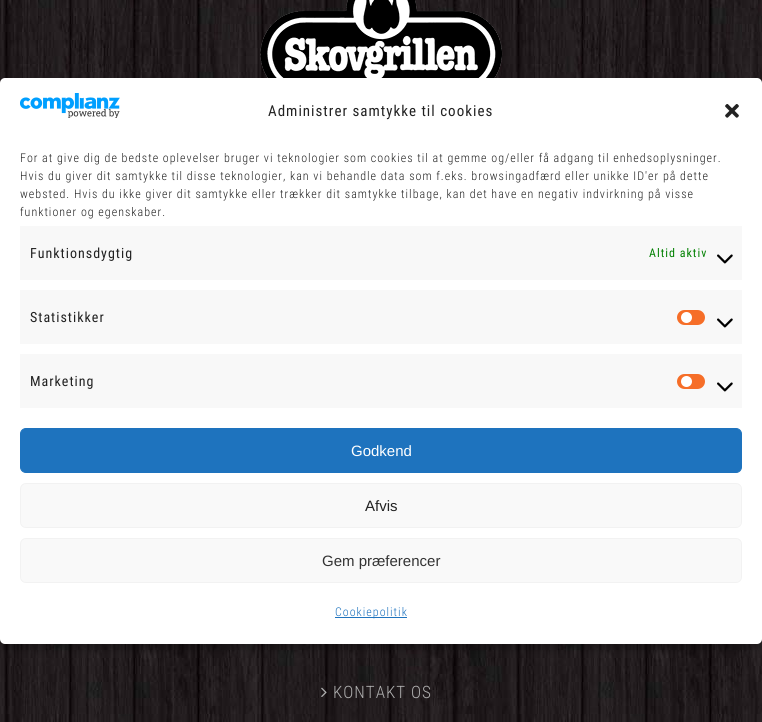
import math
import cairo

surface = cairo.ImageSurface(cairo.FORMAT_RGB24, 762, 722)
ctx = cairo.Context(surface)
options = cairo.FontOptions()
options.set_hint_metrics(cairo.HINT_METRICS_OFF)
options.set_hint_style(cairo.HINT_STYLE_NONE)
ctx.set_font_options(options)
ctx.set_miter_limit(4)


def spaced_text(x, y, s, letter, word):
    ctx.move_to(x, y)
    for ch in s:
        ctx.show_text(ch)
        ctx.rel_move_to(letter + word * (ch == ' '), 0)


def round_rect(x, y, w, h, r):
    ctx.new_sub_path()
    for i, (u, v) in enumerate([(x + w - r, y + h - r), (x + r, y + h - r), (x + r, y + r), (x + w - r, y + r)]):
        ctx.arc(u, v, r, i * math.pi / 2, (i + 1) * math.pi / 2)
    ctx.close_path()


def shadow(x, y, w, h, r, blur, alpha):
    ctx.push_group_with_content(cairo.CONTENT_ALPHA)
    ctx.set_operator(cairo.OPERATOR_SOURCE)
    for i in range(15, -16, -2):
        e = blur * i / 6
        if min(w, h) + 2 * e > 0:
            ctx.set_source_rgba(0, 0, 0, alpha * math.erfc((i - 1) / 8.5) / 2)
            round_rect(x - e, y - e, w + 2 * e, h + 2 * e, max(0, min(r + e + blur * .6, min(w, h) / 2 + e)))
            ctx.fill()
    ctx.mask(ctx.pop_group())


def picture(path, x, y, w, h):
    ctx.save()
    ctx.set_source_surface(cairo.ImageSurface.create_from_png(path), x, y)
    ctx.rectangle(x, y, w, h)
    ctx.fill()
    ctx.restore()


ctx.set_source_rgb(1, 1, 1)
ctx.paint()
picture("img4.png", 0, 0, 762, 722)
picture("img5.png", 260, 0, 243, 78)
ctx.set_source_rgb(0, 0, 0)
shadow(0, 84, 762, 566, 5, 3, 0.23)
ctx.set_source_rgb(1, 1, 1)
round_rect(0, 78, 762, 566, 5)
ctx.fill()
picture("img1.png", 20, 93, 100, 25)
ctx.select_font_face("Roboto Condensed")
ctx.set_font_size(15)
ctx.set_source_rgb(0.133, 0.133, 0.133)
spaced_text(268, 116, "Administrer samtykke til cookies", 1, 0)
picture("img2.png", 725, 104, 14, 14)
ctx.select_font_face("Roboto Condensed Light")
ctx.set_font_size(12)
spaced_text(20, 162, "For at give dig de bedste oplevelser bruger vi teknologier som cookies til at gemme og/eller få adgang til enhedsoplysninger.", 1, 0)
spaced_text(20, 180, "Hvis du giver dit samtykke til disse teknologier, kan vi behandle data som f.eks. browsingadfærd eller unikke ID'er på dette", 1, 0)
spaced_text(20, 198, "websted. Hvis du ikke giver dit samtykke eller trækker dit samtykke tilbage, kan det have en negativ indvirkning på visse", 1, 0)
spaced_text(20, 216, "funktioner og egenskaber.", 1, 0)
ctx.set_source_rgb(0.969, 0.969, 0.969)
ctx.rectangle(20, 226, 722, 54)
ctx.fill()
ctx.select_font_face("Roboto Condensed")
ctx.set_font_size(14)
ctx.set_source_rgb(0.133, 0.133, 0.133)
spaced_text(30, 258, "Funktionsdygtig", 1, 0)
ctx.set_font_size(12)
ctx.set_source_rgb(0, 0.502, 0)
spaced_text(649, 257, "Altid aktiv", 1, 0)
picture("img3.png", 717, 254, 16, 10)
ctx.set_source_rgb(0.969, 0.969, 0.969)
ctx.rectangle(20, 290, 722, 54)
ctx.fill()
ctx.set_font_size(14)
ctx.set_source_rgb(0.133, 0.133, 0.133)
spaced_text(30, 322, "Statistikker", 1, 0)
ctx.set_source_rgb(0.961, 0.431, 0.157)
round_rect(677, 310, 28, 15, 7.5)
ctx.fill()
ctx.set_source_rgb(1, 1, 1)
ctx.arc(686.5, 317.5, 5.5, 0, 2 * math.pi)
ctx.fill()
picture("img3.png", 717, 318, 16, 10)
ctx.set_source_rgb(0.969, 0.969, 0.969)
ctx.rectangle(20, 354, 722, 54)
ctx.fill()
ctx.set_source_rgb(0.133, 0.133, 0.133)
spaced_text(30, 386, "Marketing", 1, 0)
ctx.set_source_rgb(0.961, 0.431, 0.157)
round_rect(677, 374, 28, 15, 7.5)
ctx.fill()
ctx.set_source_rgb(1, 1, 1)
ctx.arc(686.5, 381.5, 5.5, 0, 2 * math.pi)
ctx.fill()
picture("img3.png", 717, 382, 16, 10)
ctx.set_source_rgb(0.118, 0.451, 0.745)
round_rect(20.5, 428.5, 721, 44, 5.5)
ctx.fill_preserve()
ctx.set_line_width(1)
ctx.stroke()
ctx.select_font_face("Liberation Sans")
ctx.set_font_size(15)
ctx.set_source_rgb(1, 1, 1)
ctx.move_to(351, 456)
ctx.show_text("Godkend")
ctx.set_source_rgb(0.976, 0.976, 0.976)
round_rect(20.5, 483.5, 721, 44, 5.5)
ctx.fill_preserve()
ctx.set_source_rgb(0.949, 0.949, 0.949)
ctx.stroke()
ctx.set_source_rgb(0.133, 0.133, 0.133)
ctx.move_to(365, 511)
ctx.show_text("Afvis")
ctx.set_source_rgb(0.976, 0.976, 0.976)
round_rect(20.5, 538.5, 721, 44, 5.5)
ctx.fill_preserve()
ctx.set_source_rgb(0.949, 0.949, 0.949)
ctx.stroke()
ctx.set_source_rgb(0.2, 0.2, 0.2)
ctx.move_to(322, 566)
ctx.show_text("Gem præferencer")
ctx.set_source_rgb(0.118, 0.451, 0.745)
ctx.rectangle(335, 617, 72, 1)
ctx.fill()
ctx.select_font_face("Roboto Condensed Light")
ctx.set_font_size(12)
spaced_text(335, 616, "Cookiepolitik", 1, 0)
picture("img6.png", 321, 687, 6, 10)
ctx.set_font_size(17)
ctx.set_source_rgb(0.686, 0.686, 0.686)
spaced_text(333, 698, "KONTAKT OS", 1, 0)
surface.write_to_png("page.png")
